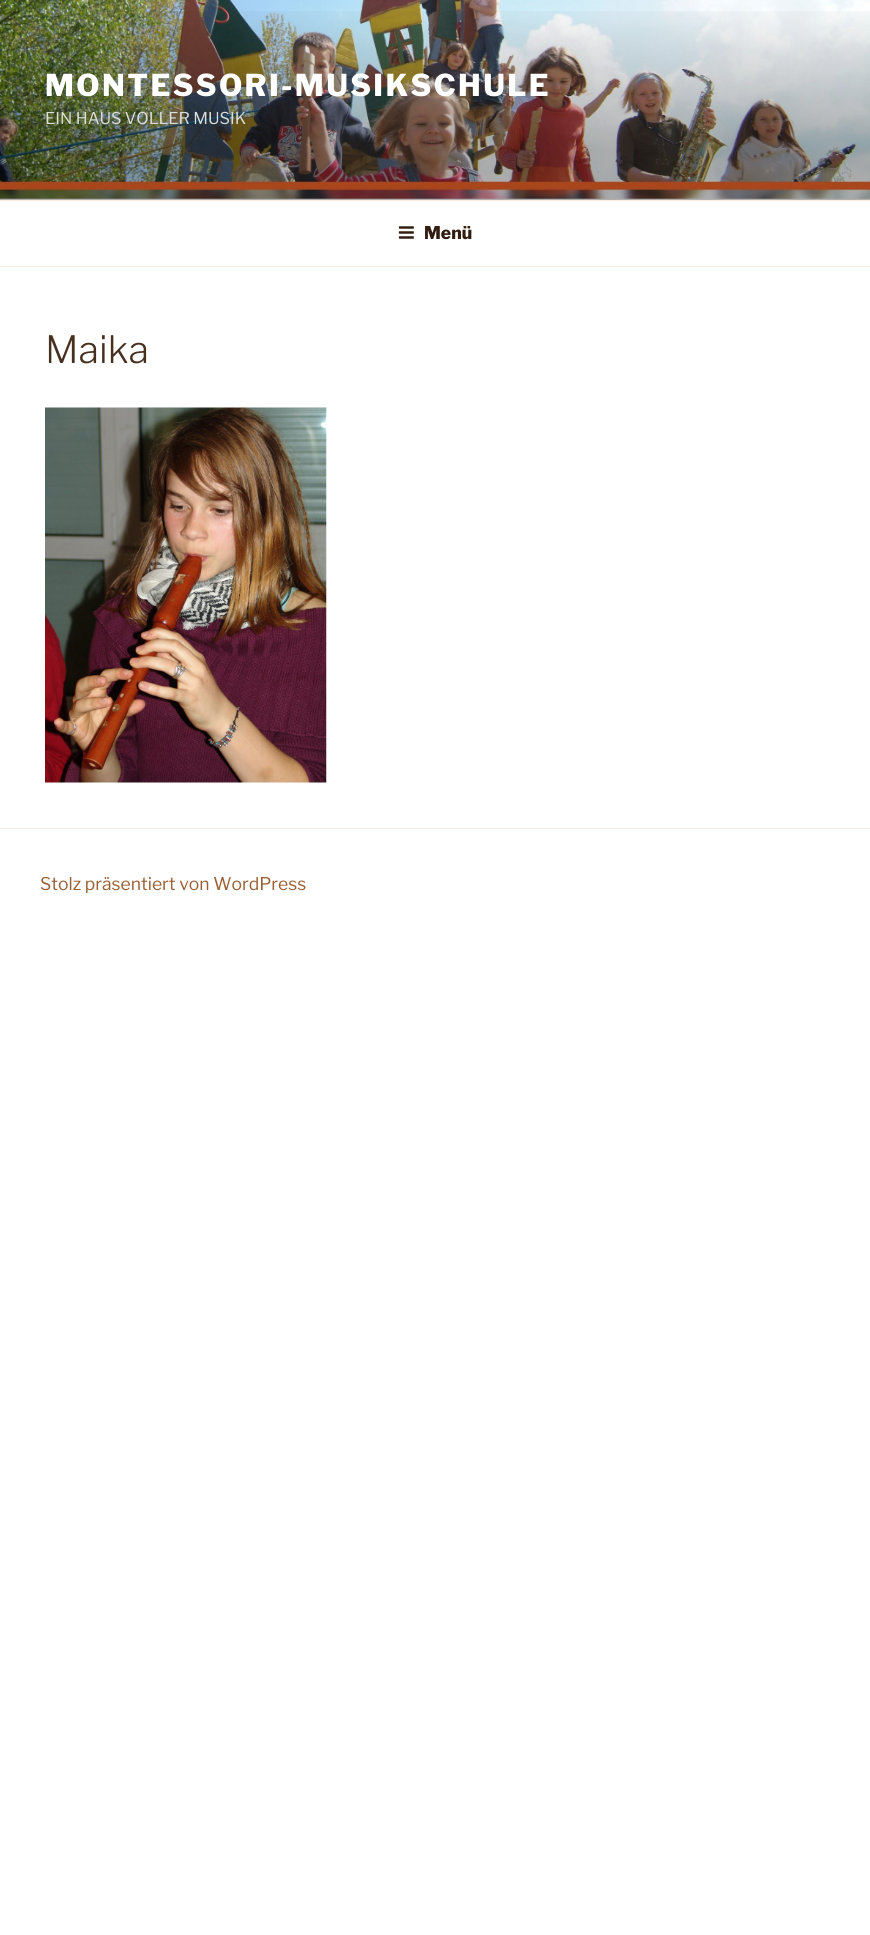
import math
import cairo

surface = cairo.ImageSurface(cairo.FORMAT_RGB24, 870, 1935)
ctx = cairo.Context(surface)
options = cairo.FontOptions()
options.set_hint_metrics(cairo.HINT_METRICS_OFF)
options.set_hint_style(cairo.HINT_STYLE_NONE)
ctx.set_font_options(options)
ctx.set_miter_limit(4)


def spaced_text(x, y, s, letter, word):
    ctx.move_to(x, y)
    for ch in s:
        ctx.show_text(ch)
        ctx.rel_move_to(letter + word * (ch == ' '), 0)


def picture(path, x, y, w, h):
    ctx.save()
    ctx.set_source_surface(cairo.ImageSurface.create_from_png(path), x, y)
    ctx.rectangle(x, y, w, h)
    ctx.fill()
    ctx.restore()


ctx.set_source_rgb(1, 1, 1)
ctx.paint()
ctx.set_source_rgb(0.988, 0.976, 0.969)
ctx.rectangle(0, 198, 870, 2)
ctx.fill()
picture("img1.png", 0, 0, 870, 199)
gradient = cairo.LinearGradient(435, 0, 435, 200)
gradient.add_color_stop_rgba(0, 0, 0, 0, 0)
gradient.add_color_stop_rgba(0.75, 0, 0, 0, 0.3)
gradient.add_color_stop_rgba(1, 0, 0, 0, 0.3)
ctx.set_source(gradient)
ctx.rectangle(0, 11, 870, 189)
ctx.fill()
ctx.select_font_face("Libre Franklin ExtraBold")
ctx.set_font_size(30)
ctx.set_source_rgb(1, 1, 1)
spaced_text(45, 96, "MONTESSORI-MUSIKSCHULE", 2.4, 0)
ctx.select_font_face("Libre Franklin")
ctx.set_font_size(16.25)
ctx.set_source_rgb(0.859, 0.867, 0.851)
ctx.move_to(45, 124)
ctx.show_text("EIN HAUS VOLLER MUSIK")
ctx.set_source_rgb(0.965, 0.925, 0.894)
ctx.rectangle(0, 200, 870, 1)
ctx.fill()
ctx.rectangle(0, 266, 870, 1)
ctx.fill()
picture("img2.png", 398, 226, 16, 13)
ctx.select_font_face("Libre Franklin ExtraBold")
ctx.set_font_size(17.5)
ctx.set_source_rgb(0.196, 0.118, 0.067)
ctx.move_to(424, 239)
ctx.show_text("Menü")
ctx.select_font_face("Libre Franklin Light")
ctx.set_font_size(37.5)
ctx.set_source_rgb(0.278, 0.188, 0.122)
ctx.move_to(45, 363)
ctx.show_text("Maika")
picture("img3.png", 45, 407, 282, 376)
ctx.set_source_rgb(0.965, 0.925, 0.894)
ctx.rectangle(0, 828, 870, 1)
ctx.fill()
ctx.select_font_face("Libre Franklin")
ctx.set_font_size(17.5)
ctx.set_source_rgb(0.6, 0.369, 0.2)
ctx.move_to(40, 890)
ctx.show_text("Stolz präsentiert von WordPress")
surface.write_to_png("page.png")
